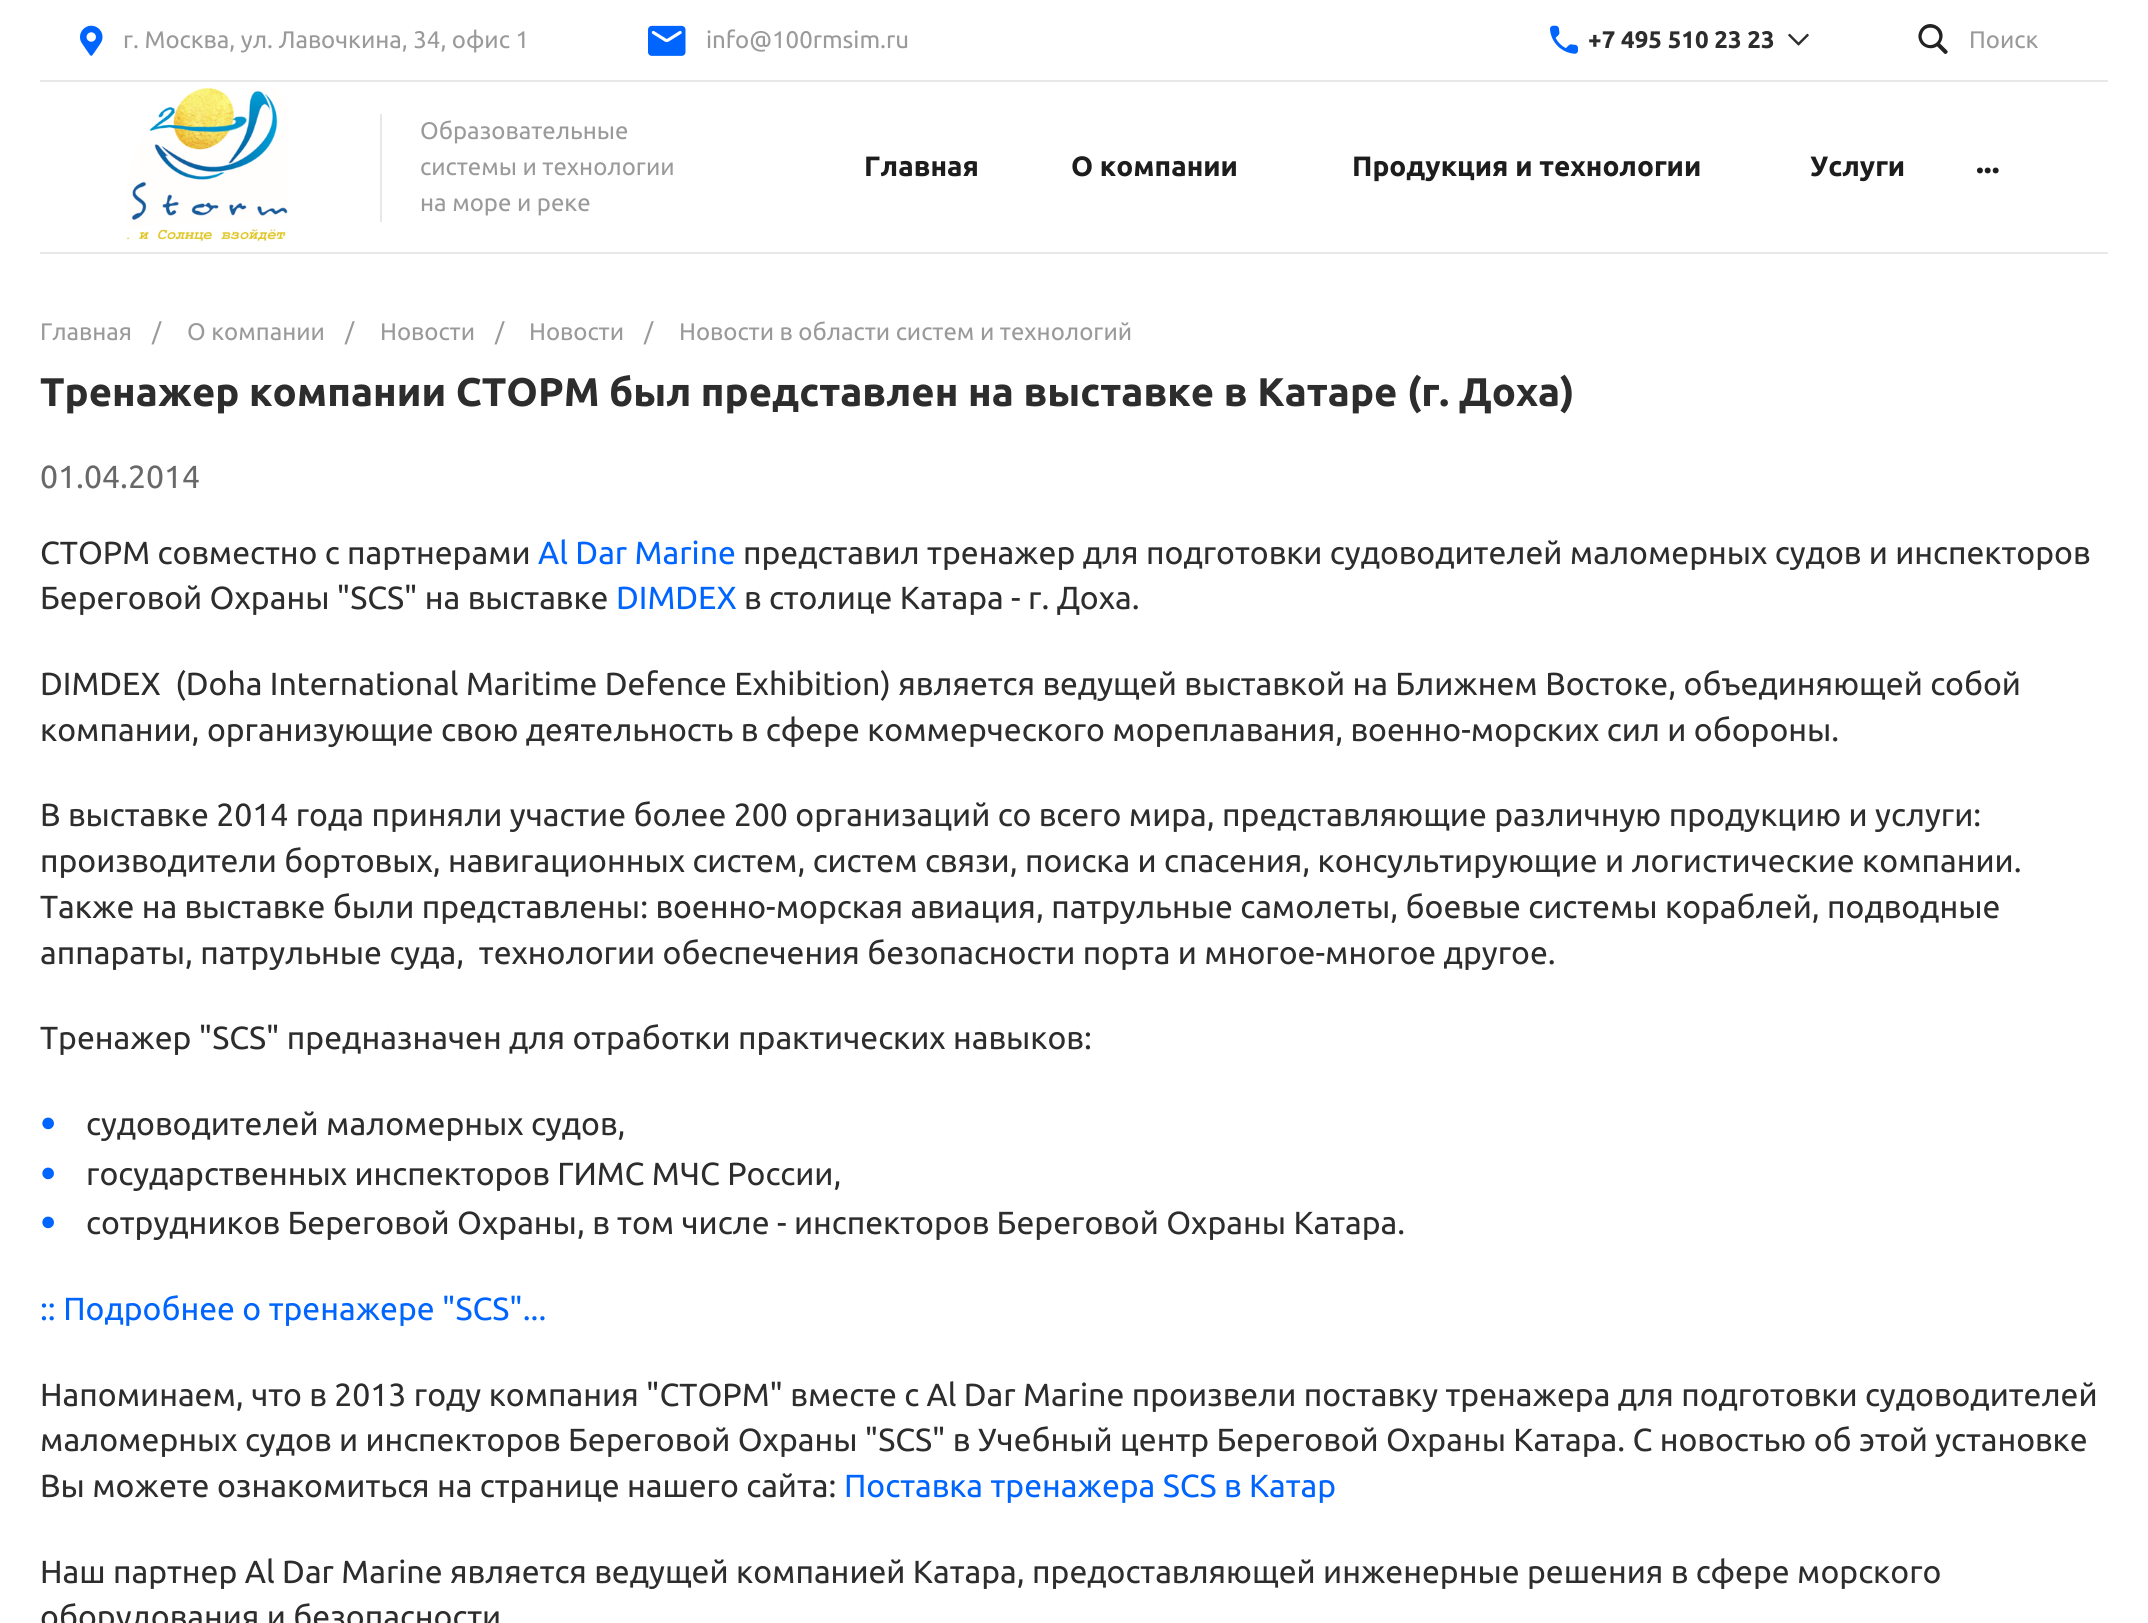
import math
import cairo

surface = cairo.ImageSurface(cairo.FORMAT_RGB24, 2148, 1623)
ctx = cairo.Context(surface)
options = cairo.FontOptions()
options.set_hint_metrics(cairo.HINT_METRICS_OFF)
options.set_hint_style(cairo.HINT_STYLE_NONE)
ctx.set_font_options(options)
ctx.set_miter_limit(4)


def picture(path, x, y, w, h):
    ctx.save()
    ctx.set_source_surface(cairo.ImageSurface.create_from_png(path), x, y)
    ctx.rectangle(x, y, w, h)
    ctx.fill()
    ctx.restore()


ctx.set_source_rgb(1, 1, 1)
ctx.paint()
ctx.set_source_rgb(0.91, 0.91, 0.91)
ctx.rectangle(40, 80, 2068, 2)
ctx.fill()
picture("img1.png", 80, 25, 23, 31)
ctx.select_font_face("Ubuntu")
ctx.set_font_size(24)
ctx.set_source_rgb(0.604, 0.604, 0.604)
ctx.move_to(123, 48)
ctx.show_text("г. Москва, ул. Лавочкина, 34, офис 1")
picture("img2.png", 648, 25, 38, 31)
ctx.move_to(706, 48)
ctx.show_text("info@100rmsim.ru")
picture("img3.png", 1550, 25, 28, 29)
ctx.select_font_face("Ubuntu", cairo.FONT_SLANT_NORMAL, cairo.FONT_WEIGHT_BOLD)
ctx.set_source_rgb(0.176, 0.176, 0.176)
ctx.move_to(1588, 48)
ctx.show_text("+7 495 510 23 23")
picture("img4.png", 1788, 33, 21, 13)
picture("img5.png", 1918, 24, 30, 30)
ctx.select_font_face("Ubuntu")
ctx.set_source_rgb(0.604, 0.604, 0.604)
ctx.move_to(1969, 48)
ctx.show_text("Поиск")
ctx.set_source_rgb(0.91, 0.91, 0.91)
ctx.rectangle(40, 252, 2068, 2)
ctx.fill()
picture("img6.png", 126, 87, 162, 155)
ctx.rectangle(380, 114, 2, 108)
ctx.fill()
ctx.set_source_rgb(0.604, 0.604, 0.604)
ctx.move_to(420, 139)
ctx.show_text("Образовательные")
ctx.move_to(420, 175)
ctx.show_text("системы и технологии")
ctx.move_to(420, 211)
ctx.show_text("на море и реке")
ctx.select_font_face("Ubuntu", cairo.FONT_SLANT_NORMAL, cairo.FONT_WEIGHT_BOLD)
ctx.set_font_size(28)
ctx.set_source_rgb(0.114, 0.114, 0.114)
ctx.move_to(864, 176)
ctx.show_text("Главная")
ctx.move_to(1071, 176)
ctx.show_text("О компании")
ctx.move_to(1352, 176)
ctx.show_text("Продукция и технологии")
ctx.move_to(1810, 176)
ctx.show_text("Услуги")
ctx.set_font_size(32)
ctx.move_to(1976, 173)
ctx.show_text("...")
ctx.select_font_face("Ubuntu")
ctx.set_font_size(24)
ctx.set_source_rgb(0.604, 0.604, 0.604)
ctx.move_to(40, 340)
ctx.show_text("Главная")
ctx.move_to(152, 340)
ctx.show_text("/")
ctx.move_to(187, 340)
ctx.show_text("О компании")
ctx.move_to(345, 340)
ctx.show_text("/")
ctx.move_to(380, 340)
ctx.show_text("Новости")
ctx.move_to(495, 340)
ctx.show_text("/")
ctx.move_to(529, 340)
ctx.show_text("Новости")
ctx.move_to(644, 340)
ctx.show_text("/")
ctx.move_to(679, 340)
ctx.show_text("Новости в области систем и технологий")
ctx.select_font_face("Ubuntu", cairo.FONT_SLANT_NORMAL, cairo.FONT_WEIGHT_BOLD)
ctx.set_font_size(40)
ctx.set_source_rgb(0.176, 0.176, 0.176)
ctx.move_to(40, 406)
ctx.show_text("Тренажер компании СТОРМ был представлен на выставке в Катаре (г. Доха)")
ctx.select_font_face("Ubuntu")
ctx.set_font_size(32)
ctx.set_source_rgb(0.412, 0.412, 0.412)
ctx.move_to(40, 488)
ctx.show_text("01.04.2014")
ctx.set_source_rgb(0.176, 0.176, 0.176)
ctx.move_to(40, 564)
ctx.show_text("СТОРМ совместно с партнерами")
ctx.set_source_rgb(0, 0.396, 1)
ctx.move_to(538, 564)
ctx.show_text("Al Dar Marine")
ctx.set_source_rgb(0.176, 0.176, 0.176)
ctx.move_to(743, 564)
ctx.show_text("представил тренажер для подготовки судоводителей маломерных судов и инспекторов")
ctx.move_to(40, 609)
ctx.show_text("Береговой Охраны \"SCS\" на выставке")
ctx.set_source_rgb(0, 0.396, 1)
ctx.move_to(616, 609)
ctx.show_text("DIMDEX")
ctx.set_source_rgb(0.176, 0.176, 0.176)
ctx.move_to(744, 609)
ctx.show_text("в столице Катара - г. Доха.")
ctx.move_to(40, 695)
ctx.show_text("DIMDEX  (Doha International Maritime Defence Exhibition) является ведущей выставкой на Ближнем Востоке, объединяющей собой")
ctx.move_to(40, 741)
ctx.show_text("компании, организующие свою деятельность в сфере коммерческого мореплавания, военно-морских сил и обороны.")
ctx.move_to(40, 826)
ctx.show_text("В выставке 2014 года приняли участие более 200 организаций со всего мира, представляющие различную продукцию и услуги:")
ctx.move_to(40, 872)
ctx.show_text("производители бортовых, навигационных систем, систем связи, поиска и спасения, консультирующие и логистические компании.")
ctx.move_to(40, 918)
ctx.show_text("Также на выставке были представлены: военно-морская авиация, патрульные самолеты, боевые системы кораблей, подводные")
ctx.move_to(40, 964)
ctx.show_text("аппараты, патрульные суда,  технологии обеспечения безопасности порта и многое-многое другое.")
ctx.move_to(40, 1049)
ctx.show_text("Тренажер \"SCS\" предназначен для отработки практических навыков:")
ctx.select_font_face("Liberation Sans")
ctx.set_font_size(27)
ctx.set_source_rgb(0, 0.396, 1)
ctx.move_to(40, 1131)
ctx.show_text("●")
ctx.select_font_face("Ubuntu")
ctx.set_font_size(32)
ctx.set_source_rgb(0.176, 0.176, 0.176)
ctx.move_to(86, 1135)
ctx.show_text("судоводителей маломерных судов,")
ctx.select_font_face("Liberation Sans")
ctx.set_font_size(27)
ctx.set_source_rgb(0, 0.396, 1)
ctx.move_to(40, 1181)
ctx.show_text("●")
ctx.select_font_face("Ubuntu")
ctx.set_font_size(32)
ctx.set_source_rgb(0.176, 0.176, 0.176)
ctx.move_to(86, 1185)
ctx.show_text("государственных инспекторов ГИМС МЧС России,")
ctx.select_font_face("Liberation Sans")
ctx.set_font_size(27)
ctx.set_source_rgb(0, 0.396, 1)
ctx.move_to(40, 1230)
ctx.show_text("●")
ctx.select_font_face("Ubuntu")
ctx.set_font_size(32)
ctx.set_source_rgb(0.176, 0.176, 0.176)
ctx.move_to(86, 1234)
ctx.show_text("сотрудников Береговой Охраны, в том числе - инспекторов Береговой Охраны Катара.")
ctx.set_source_rgb(0, 0.396, 1)
ctx.move_to(40, 1320)
ctx.show_text(":: Подробнее о тренажере \"SCS\"...")
ctx.set_source_rgb(0.176, 0.176, 0.176)
ctx.move_to(40, 1406)
ctx.show_text("Напоминаем, что в 2013 году компания \"СТОРМ\" вместе с Al Dar Marine произвели поставку тренажера для подготовки судоводителей")
ctx.move_to(40, 1451)
ctx.show_text("маломерных судов и инспекторов Береговой Охраны \"SCS\" в Учебный центр Береговой Охраны Катара. С новостью об этой установке")
ctx.move_to(40, 1497)
ctx.show_text("Вы можете ознакомиться на странице нашего сайта:")
ctx.set_source_rgb(0, 0.396, 1)
ctx.move_to(844, 1497)
ctx.show_text("Поставка тренажера SCS в Катар")
ctx.set_source_rgb(0.176, 0.176, 0.176)
ctx.move_to(40, 1583)
ctx.show_text("Наш партнер Al Dar Marine является ведущей компанией Катара, предоставляющей инженерные решения в сфере морского")
ctx.move_to(40, 1628)
ctx.show_text("оборудования и безопасности")
surface.write_to_png("page.png")
